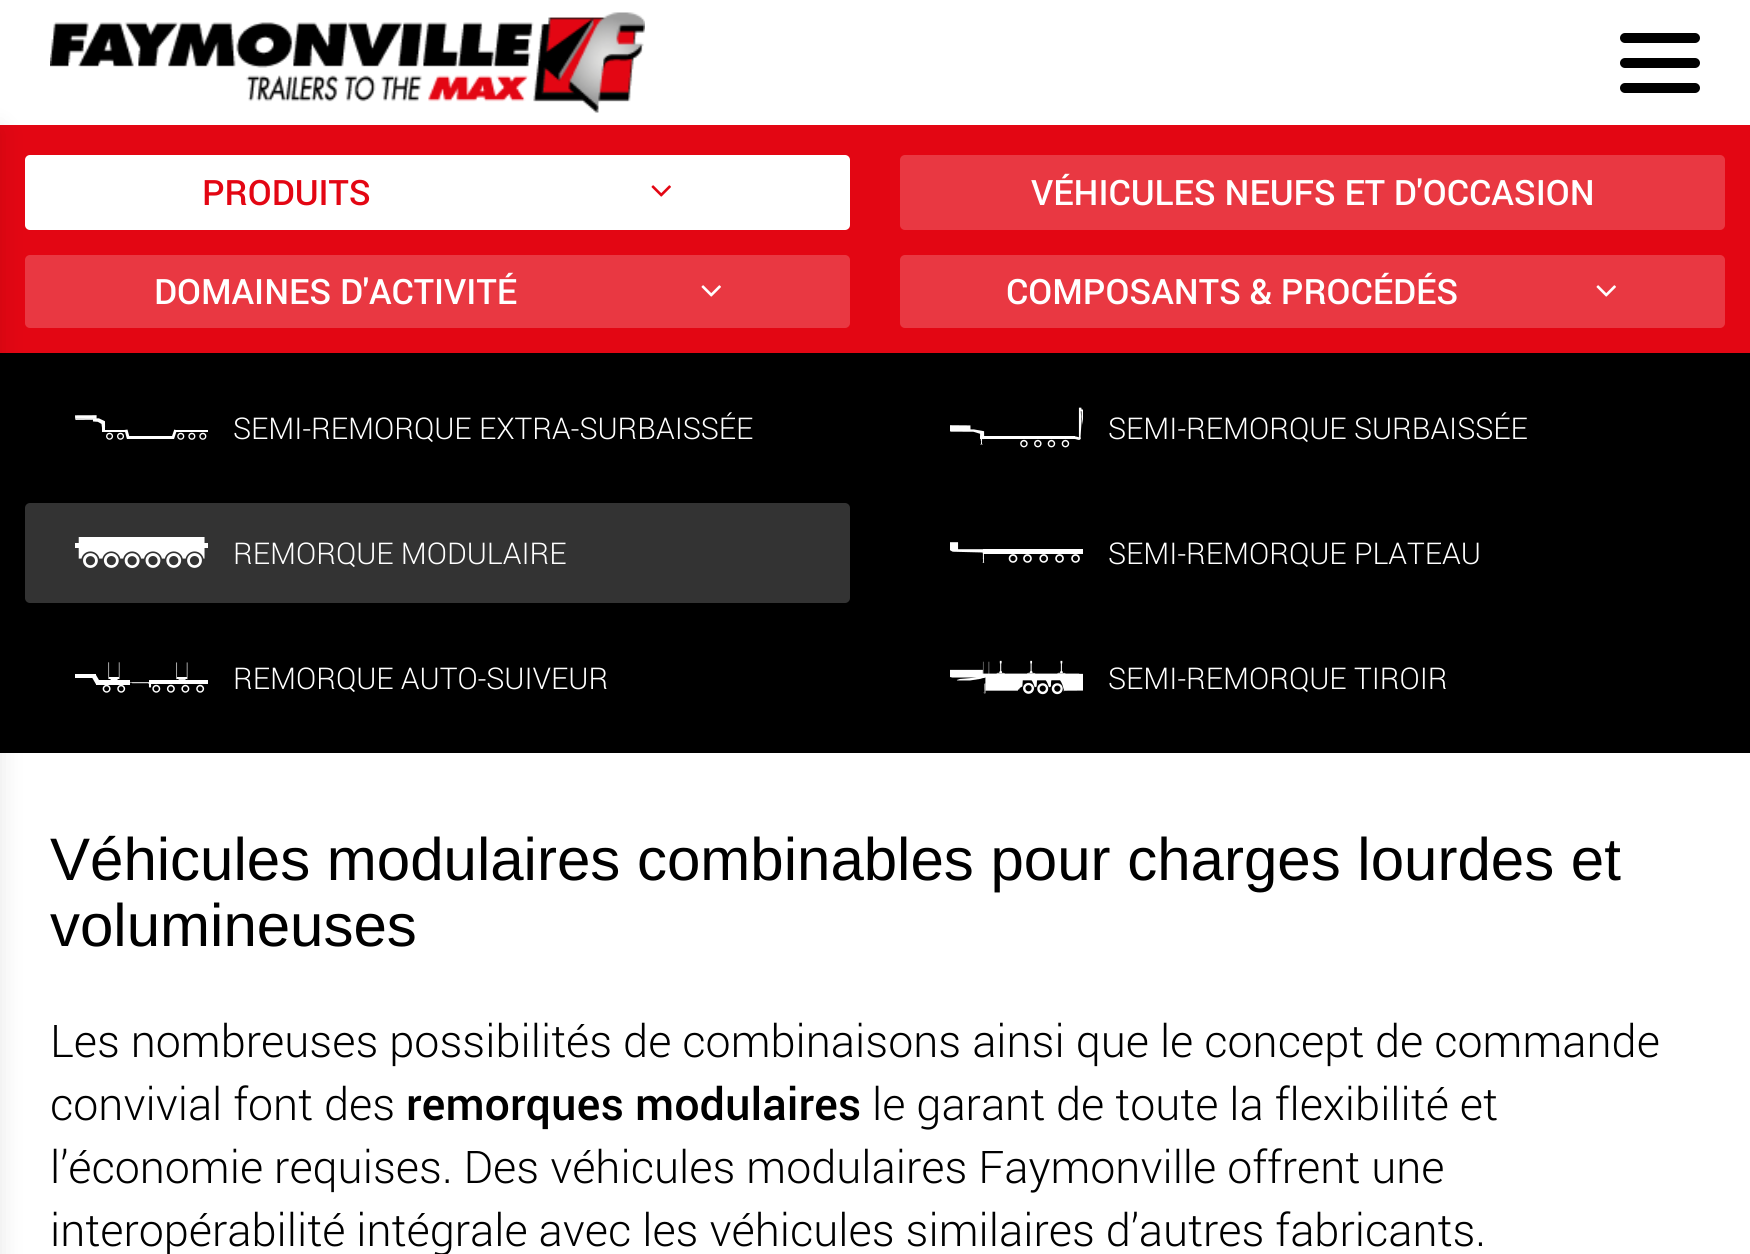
import math
import cairo

surface = cairo.ImageSurface(cairo.FORMAT_RGB24, 1750, 1254)
ctx = cairo.Context(surface)
options = cairo.FontOptions()
options.set_hint_metrics(cairo.HINT_METRICS_OFF)
options.set_hint_style(cairo.HINT_STYLE_NONE)
ctx.set_font_options(options)
ctx.set_miter_limit(4)


def round_rect(x, y, w, h, r):
    ctx.new_sub_path()
    for i, (u, v) in enumerate([(x + w - r, y + h - r), (x + r, y + h - r), (x + r, y + r), (x + w - r, y + r)]):
        ctx.arc(u, v, r, i * math.pi / 2, (i + 1) * math.pi / 2)
    ctx.close_path()


def shadow(x, y, w, h, r, blur, alpha):
    ctx.push_group_with_content(cairo.CONTENT_ALPHA)
    ctx.set_operator(cairo.OPERATOR_SOURCE)
    for i in range(15, -16, -2):
        e = blur * i / 6
        if min(w, h) + 2 * e > 0:
            ctx.set_source_rgba(0, 0, 0, alpha * math.erfc((i - 1) / 8.5) / 2)
            round_rect(x - e, y - e, w + 2 * e, h + 2 * e, max(0, min(r + e + blur * .6, min(w, h) / 2 + e)))
            ctx.fill()
    ctx.mask(ctx.pop_group())


def picture(path, x, y, w, h):
    ctx.save()
    ctx.set_source_surface(cairo.ImageSurface.create_from_png(path), x, y)
    ctx.rectangle(x, y, w, h)
    ctx.fill()
    ctx.restore()


ctx.set_source_rgb(1, 1, 1)
ctx.paint()
picture("img1.png", 50, 12, 595, 101)
ctx.set_source_rgb(0, 0, 0)
round_rect(1620, 33, 80, 10, 5)
ctx.fill()
round_rect(1620, 58, 80, 10, 5)
ctx.fill()
round_rect(1620, 83, 80, 10, 5)
ctx.fill()
ctx.set_source_rgb(0.89, 0.024, 0.075)
ctx.rectangle(0, 125, 1750, 228)
ctx.fill()
ctx.set_source_rgb(1, 1, 1)
round_rect(25, 155, 825, 75, 5)
ctx.fill()
ctx.set_source_rgb(0.914, 0.22, 0.259)
round_rect(25, 255, 825, 73, 5)
ctx.fill()
ctx.set_source_rgb(0, 0, 0)
ctx.rectangle(0, 353, 1750, 400)
ctx.fill()
ctx.set_source_rgb(0.2, 0.2, 0.2)
round_rect(25, 503, 825, 100, 5)
ctx.fill()
ctx.set_source_rgb(0, 0, 0)
shadow(-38, 130, 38, 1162, 0, 12.5, 0.1)
ctx.select_font_face("Roboto Medium")
ctx.set_font_size(35)
ctx.set_source_rgb(0.89, 0.024, 0.075)
ctx.move_to(202, 205)
ctx.show_text("PRODUITS")
picture("img2.png", 651, 185, 20, 12)
ctx.set_source_rgb(0.914, 0.22, 0.259)
round_rect(900, 155, 825, 75, 5)
ctx.fill()
ctx.set_source_rgb(1, 1, 1)
ctx.move_to(1031, 205)
ctx.show_text("VÉHICULES NEUFS ET D'OCCASION")
ctx.move_to(154, 304)
ctx.show_text("DOMAINES D'ACTIVITÉ")
picture("img3.png", 701, 285, 20, 12)
ctx.set_source_rgb(0.914, 0.22, 0.259)
round_rect(900, 255, 825, 73, 5)
ctx.fill()
ctx.set_source_rgb(1, 1, 1)
ctx.move_to(1006, 304)
ctx.show_text("COMPOSANTS & PROCÉDÉS")
picture("img3.png", 1596, 285, 20, 12)
picture("img4.png", 75, 415, 133, 25)
ctx.select_font_face("Roboto Light")
ctx.set_font_size(30)
ctx.move_to(233, 439)
ctx.show_text("SEMI-REMORQUE EXTRA-SURBAISSÉE")
picture("img5.png", 950, 407, 133, 41)
ctx.move_to(1108, 439)
ctx.show_text("SEMI-REMORQUE SURBAISSÉE")
picture("img6.png", 75, 537, 133, 31)
ctx.move_to(233, 564)
ctx.show_text("REMORQUE MODULAIRE")
picture("img7.png", 950, 542, 133, 21)
ctx.move_to(1108, 564)
ctx.show_text("SEMI-REMORQUE PLATEAU")
picture("img8.png", 75, 662, 133, 31)
ctx.move_to(233, 689)
ctx.show_text("REMORQUE AUTO-SUIVEUR")
picture("img9.png", 950, 660, 133, 35)
ctx.move_to(1108, 689)
ctx.show_text("SEMI-REMORQUE TIROIR")
ctx.select_font_face("Liberation Sans")
ctx.set_font_size(60)
ctx.set_source_rgb(0, 0, 0)
ctx.move_to(50, 880)
ctx.show_text("Véhicules modulaires combinables pour charges lourdes et")
ctx.move_to(50, 946)
ctx.show_text("volumineuses")
ctx.select_font_face("Roboto Light")
ctx.set_font_size(45)
ctx.move_to(50, 1057)
ctx.show_text("Les nombreuses possibilités de combinaisons ainsi que le concept de commande")
ctx.move_to(50, 1120)
ctx.show_text("convivial font des")
ctx.select_font_face("Roboto Medium")
ctx.move_to(406, 1120)
ctx.show_text("remorques modulaires")
ctx.select_font_face("Roboto Light")
ctx.move_to(872, 1120)
ctx.show_text("le garant de toute la flexibilité et")
ctx.move_to(50, 1183)
ctx.show_text("l’économie requises. Des véhicules modulaires Faymonville offrent une")
ctx.move_to(50, 1246)
ctx.show_text("interopérabilité intégrale avec les véhicules similaires d’autres fabricants.")
surface.write_to_png("page.png")
